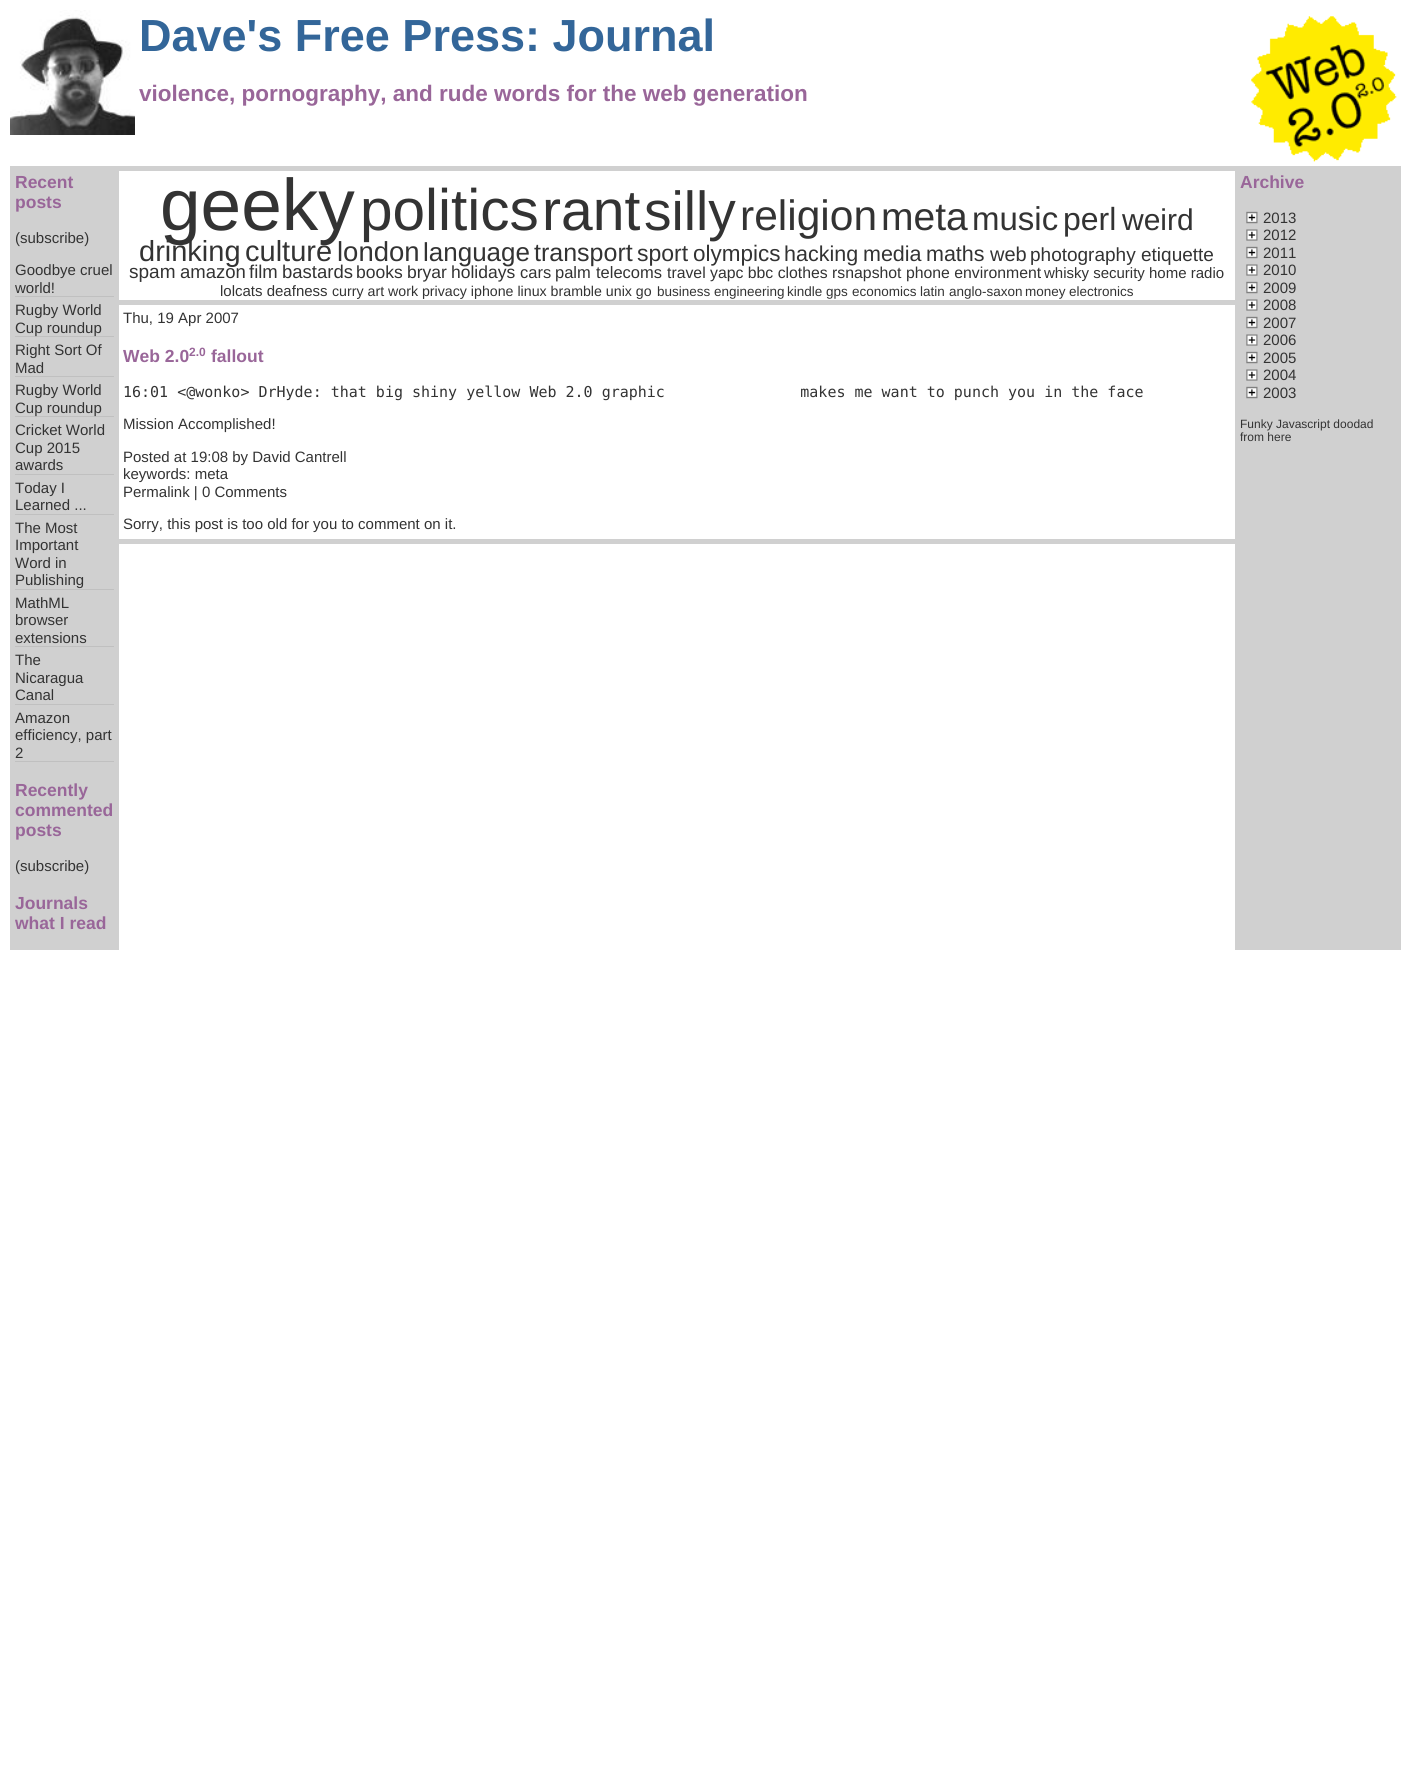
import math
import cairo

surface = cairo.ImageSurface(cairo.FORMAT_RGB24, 1411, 1784)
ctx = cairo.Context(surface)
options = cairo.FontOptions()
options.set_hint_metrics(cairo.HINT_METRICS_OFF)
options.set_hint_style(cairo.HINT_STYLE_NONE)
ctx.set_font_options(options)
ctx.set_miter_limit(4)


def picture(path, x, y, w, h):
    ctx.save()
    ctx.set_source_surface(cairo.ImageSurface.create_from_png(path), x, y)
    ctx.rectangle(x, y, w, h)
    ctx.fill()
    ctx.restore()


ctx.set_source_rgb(1, 1, 1)
ctx.paint()
picture("img1.png", 10, 10, 125, 125)
ctx.select_font_face("Liberation Sans", cairo.FONT_SLANT_NORMAL, cairo.FONT_WEIGHT_BOLD)
ctx.set_font_size(45)
ctx.set_source_rgb(0.2, 0.4, 0.6)
ctx.move_to(139, 51)
ctx.show_text("Dave's Free Press: Journal")
picture("img2.png", 1251, 16, 146, 146)
ctx.set_font_size(22.5)
ctx.set_source_rgb(0.6, 0.4, 0.6)
ctx.move_to(139, 101)
ctx.show_text("violence, pornography, and rude words for the web generation")
ctx.set_source_rgb(0.816, 0.816, 0.816)
ctx.rectangle(10, 166, 1391, 5)
ctx.fill()
ctx.rectangle(10, 171, 109, 779)
ctx.fill()
ctx.rectangle(1235, 171, 166, 779)
ctx.fill()
ctx.set_font_size(17.5)
ctx.set_source_rgb(0.6, 0.4, 0.6)
ctx.move_to(15, 188)
ctx.show_text("Recent")
ctx.move_to(15, 208)
ctx.show_text("posts")
ctx.select_font_face("Liberation Sans")
ctx.set_font_size(15)
ctx.set_source_rgb(0.2, 0.2, 0.2)
ctx.move_to(15, 243)
ctx.show_text("(subscribe)")
ctx.set_source_rgb(0.753, 0.753, 0.753)
ctx.rectangle(15, 296, 99, 1)
ctx.fill()
ctx.set_source_rgb(0.2, 0.2, 0.2)
ctx.move_to(15, 275)
ctx.show_text("Goodbye cruel")
ctx.move_to(15, 293)
ctx.show_text("world!")
ctx.set_source_rgb(0.753, 0.753, 0.753)
ctx.rectangle(15, 336, 99, 1)
ctx.fill()
ctx.set_source_rgb(0.2, 0.2, 0.2)
ctx.move_to(15, 315)
ctx.show_text("Rugby World")
ctx.move_to(15, 333)
ctx.show_text("Cup roundup")
ctx.set_source_rgb(0.753, 0.753, 0.753)
ctx.rectangle(15, 376, 99, 1)
ctx.fill()
ctx.set_source_rgb(0.2, 0.2, 0.2)
ctx.move_to(15, 355)
ctx.show_text("Right Sort Of")
ctx.move_to(15, 373)
ctx.show_text("Mad")
ctx.set_source_rgb(0.753, 0.753, 0.753)
ctx.rectangle(15, 416, 99, 1)
ctx.fill()
ctx.set_source_rgb(0.2, 0.2, 0.2)
ctx.move_to(15, 395)
ctx.show_text("Rugby World")
ctx.move_to(15, 413)
ctx.show_text("Cup roundup")
ctx.set_source_rgb(0.753, 0.753, 0.753)
ctx.rectangle(15, 474, 99, 1)
ctx.fill()
ctx.set_source_rgb(0.2, 0.2, 0.2)
ctx.move_to(15, 435)
ctx.show_text("Cricket World")
ctx.move_to(15, 453)
ctx.show_text("Cup 2015")
ctx.move_to(15, 470)
ctx.show_text("awards")
ctx.set_source_rgb(0.753, 0.753, 0.753)
ctx.rectangle(15, 514, 99, 1)
ctx.fill()
ctx.set_source_rgb(0.2, 0.2, 0.2)
ctx.move_to(15, 493)
ctx.show_text("Today I")
ctx.move_to(15, 510)
ctx.show_text("Learned ...")
ctx.set_source_rgb(0.753, 0.753, 0.753)
ctx.rectangle(15, 589, 99, 1)
ctx.fill()
ctx.set_source_rgb(0.2, 0.2, 0.2)
ctx.move_to(15, 533)
ctx.show_text("The Most")
ctx.move_to(15, 550)
ctx.show_text("Important")
ctx.move_to(15, 568)
ctx.show_text("Word in")
ctx.move_to(15, 585)
ctx.show_text("Publishing")
ctx.set_source_rgb(0.753, 0.753, 0.753)
ctx.rectangle(15, 646, 99, 1)
ctx.fill()
ctx.set_source_rgb(0.2, 0.2, 0.2)
ctx.move_to(15, 608)
ctx.show_text("MathML")
ctx.move_to(15, 625)
ctx.show_text("browser")
ctx.move_to(15, 643)
ctx.show_text("extensions")
ctx.set_source_rgb(0.753, 0.753, 0.753)
ctx.rectangle(15, 704, 99, 1)
ctx.fill()
ctx.set_source_rgb(0.2, 0.2, 0.2)
ctx.move_to(15, 665)
ctx.show_text("The")
ctx.move_to(15, 683)
ctx.show_text("Nicaragua")
ctx.move_to(15, 700)
ctx.show_text("Canal")
ctx.set_source_rgb(0.753, 0.753, 0.753)
ctx.rectangle(15, 761, 99, 1)
ctx.fill()
ctx.set_source_rgb(0.2, 0.2, 0.2)
ctx.move_to(15, 723)
ctx.show_text("Amazon")
ctx.move_to(15, 740)
ctx.show_text("efficiency, part")
ctx.move_to(15, 758)
ctx.show_text("2")
ctx.select_font_face("Liberation Sans", cairo.FONT_SLANT_NORMAL, cairo.FONT_WEIGHT_BOLD)
ctx.set_font_size(17.5)
ctx.set_source_rgb(0.6, 0.4, 0.6)
ctx.move_to(15, 796)
ctx.show_text("Recently")
ctx.move_to(15, 816)
ctx.show_text("commented")
ctx.move_to(15, 836)
ctx.show_text("posts")
ctx.select_font_face("Liberation Sans")
ctx.set_font_size(15)
ctx.set_source_rgb(0.2, 0.2, 0.2)
ctx.move_to(15, 871)
ctx.show_text("(subscribe)")
ctx.select_font_face("Liberation Sans", cairo.FONT_SLANT_NORMAL, cairo.FONT_WEIGHT_BOLD)
ctx.set_font_size(17.5)
ctx.set_source_rgb(0.6, 0.4, 0.6)
ctx.move_to(15, 909)
ctx.show_text("Journals")
ctx.move_to(15, 929)
ctx.show_text("what I read")
ctx.select_font_face("Liberation Sans")
ctx.set_font_size(73)
ctx.set_source_rgb(0.2, 0.2, 0.2)
ctx.move_to(160, 230)
ctx.show_text("geeky")
ctx.set_font_size(58.5)
ctx.move_to(360, 230)
ctx.show_text("politics")
ctx.set_font_size(57)
ctx.move_to(542, 230)
ctx.show_text("rant")
ctx.set_font_size(55)
ctx.move_to(644, 230)
ctx.show_text("silly")
ctx.set_font_size(42.5)
ctx.move_to(740, 230)
ctx.show_text("religion")
ctx.set_font_size(39)
ctx.move_to(881, 230)
ctx.show_text("meta")
ctx.set_font_size(33)
ctx.move_to(972, 230)
ctx.show_text("music")
ctx.set_font_size(32)
ctx.move_to(1063, 230)
ctx.show_text("perl")
ctx.set_font_size(30)
ctx.move_to(1122, 230)
ctx.show_text("weird")
ctx.set_font_size(29)
ctx.move_to(139, 261)
ctx.show_text("drinking")
ctx.move_to(245, 261)
ctx.show_text("culture")
ctx.set_font_size(27.5)
ctx.move_to(337, 261)
ctx.show_text("london")
ctx.set_font_size(26)
ctx.move_to(423, 261)
ctx.show_text("language")
ctx.set_font_size(25)
ctx.move_to(534, 261)
ctx.show_text("transport")
ctx.set_font_size(23)
ctx.move_to(637, 261)
ctx.show_text("sport")
ctx.set_font_size(22.5)
ctx.move_to(693, 261)
ctx.show_text("olympics")
ctx.set_font_size(21.5)
ctx.move_to(784, 261)
ctx.show_text("hacking")
ctx.move_to(863, 261)
ctx.show_text("media")
ctx.move_to(926, 261)
ctx.show_text("maths")
ctx.set_font_size(20)
ctx.move_to(990, 261)
ctx.show_text("web")
ctx.set_font_size(19)
ctx.move_to(1030, 261)
ctx.show_text("photography")
ctx.move_to(1141, 261)
ctx.show_text("etiquette")
ctx.move_to(129, 278)
ctx.show_text("spam")
ctx.set_font_size(18.5)
ctx.move_to(180, 278)
ctx.show_text("amazon")
ctx.move_to(249, 278)
ctx.show_text("film")
ctx.move_to(282, 278)
ctx.show_text("bastards")
ctx.set_font_size(17.5)
ctx.move_to(356, 278)
ctx.show_text("books")
ctx.move_to(407, 278)
ctx.show_text("bryar")
ctx.move_to(451, 278)
ctx.show_text("holidays")
ctx.set_font_size(16.5)
ctx.move_to(520, 278)
ctx.show_text("cars")
ctx.move_to(555, 278)
ctx.show_text("palm")
ctx.move_to(596, 278)
ctx.show_text("telecoms")
ctx.set_font_size(15.8)
ctx.move_to(667, 278)
ctx.show_text("travel yapc bbc clothes rsnapshot phone environment")
ctx.set_font_size(15)
ctx.move_to(1044, 278)
ctx.show_text("whisky security home radio")
ctx.move_to(220, 296)
ctx.show_text("lolcats deafness")
ctx.set_font_size(14.2)
ctx.move_to(332, 296)
ctx.show_text("curry art work privacy iphone linux bramble unix go")
ctx.set_font_size(13.5)
ctx.move_to(657, 296)
ctx.show_text("business")
ctx.move_to(714, 296)
ctx.show_text("engineering")
ctx.move_to(787, 296)
ctx.show_text("kindle")
ctx.move_to(826, 296)
ctx.show_text("gps")
ctx.move_to(852, 296)
ctx.show_text("economics")
ctx.move_to(920, 296)
ctx.show_text("latin")
ctx.move_to(949, 296)
ctx.show_text("anglo-saxon")
ctx.move_to(1025, 296)
ctx.show_text("money")
ctx.move_to(1069, 296)
ctx.show_text("electronics")
ctx.set_source_rgb(0.816, 0.816, 0.816)
ctx.rectangle(119, 300, 1116, 5)
ctx.fill()
ctx.set_font_size(15)
ctx.set_source_rgb(0.2, 0.2, 0.2)
ctx.move_to(123, 323)
ctx.show_text("Thu, 19 Apr 2007")
ctx.select_font_face("Liberation Sans", cairo.FONT_SLANT_NORMAL, cairo.FONT_WEIGHT_BOLD)
ctx.set_font_size(17.5)
ctx.set_source_rgb(0.6, 0.4, 0.6)
ctx.move_to(123, 362)
ctx.show_text("Web 2.0")
ctx.set_font_size(12)
ctx.move_to(189, 356)
ctx.show_text("2.0")
ctx.set_font_size(17.5)
ctx.move_to(211, 362)
ctx.show_text("fallout")
ctx.select_font_face("DejaVu Sans Mono")
ctx.set_font_size(15)
ctx.set_source_rgb(0.2, 0.2, 0.2)
ctx.move_to(123, 397)
ctx.show_text("16:01 <@wonko> DrHyde: that big shiny yellow Web 2.0 graphic               makes me want to punch you in the face")
ctx.select_font_face("Liberation Sans")
ctx.move_to(123, 429)
ctx.show_text("Mission Accomplished!")
ctx.move_to(123, 462)
ctx.show_text("Posted at 19:08 by David Cantrell")
ctx.move_to(123, 479)
ctx.show_text("keywords: meta")
ctx.move_to(123, 497)
ctx.show_text("Permalink | 0 Comments")
ctx.move_to(123, 529)
ctx.show_text("Sorry, this post is too old for you to comment on it.")
ctx.set_source_rgb(0.816, 0.816, 0.816)
ctx.rectangle(119, 539, 1116, 5)
ctx.fill()
ctx.select_font_face("Liberation Sans", cairo.FONT_SLANT_NORMAL, cairo.FONT_WEIGHT_BOLD)
ctx.set_font_size(17.5)
ctx.set_source_rgb(0.6, 0.4, 0.6)
ctx.move_to(1240, 188)
ctx.show_text("Archive")
picture("img3.png", 1246, 211, 12, 13)
ctx.select_font_face("Liberation Sans")
ctx.set_font_size(15)
ctx.set_source_rgb(0.2, 0.2, 0.2)
ctx.move_to(1263, 223)
ctx.show_text("2013")
picture("img4.png", 1246, 229, 12, 12)
ctx.move_to(1263, 240)
ctx.show_text("2012")
picture("img3.png", 1246, 246, 12, 13)
ctx.move_to(1263, 258)
ctx.show_text("2011")
picture("img4.png", 1246, 264, 12, 12)
ctx.move_to(1263, 275)
ctx.show_text("2010")
picture("img3.png", 1246, 281, 12, 13)
ctx.move_to(1263, 293)
ctx.show_text("2009")
picture("img4.png", 1246, 299, 12, 12)
ctx.move_to(1263, 310)
ctx.show_text("2008")
picture("img3.png", 1246, 316, 12, 13)
ctx.move_to(1263, 328)
ctx.show_text("2007")
picture("img4.png", 1246, 334, 12, 12)
ctx.move_to(1263, 345)
ctx.show_text("2006")
picture("img3.png", 1246, 351, 12, 13)
ctx.move_to(1263, 363)
ctx.show_text("2005")
picture("img4.png", 1246, 369, 12, 12)
ctx.move_to(1263, 380)
ctx.show_text("2004")
picture("img3.png", 1246, 386, 12, 13)
ctx.move_to(1263, 398)
ctx.show_text("2003")
ctx.set_font_size(12)
ctx.move_to(1240, 428)
ctx.show_text("Funky Javascript doodad")
ctx.move_to(1240, 441)
ctx.show_text("from here")
surface.write_to_png("page.png")
